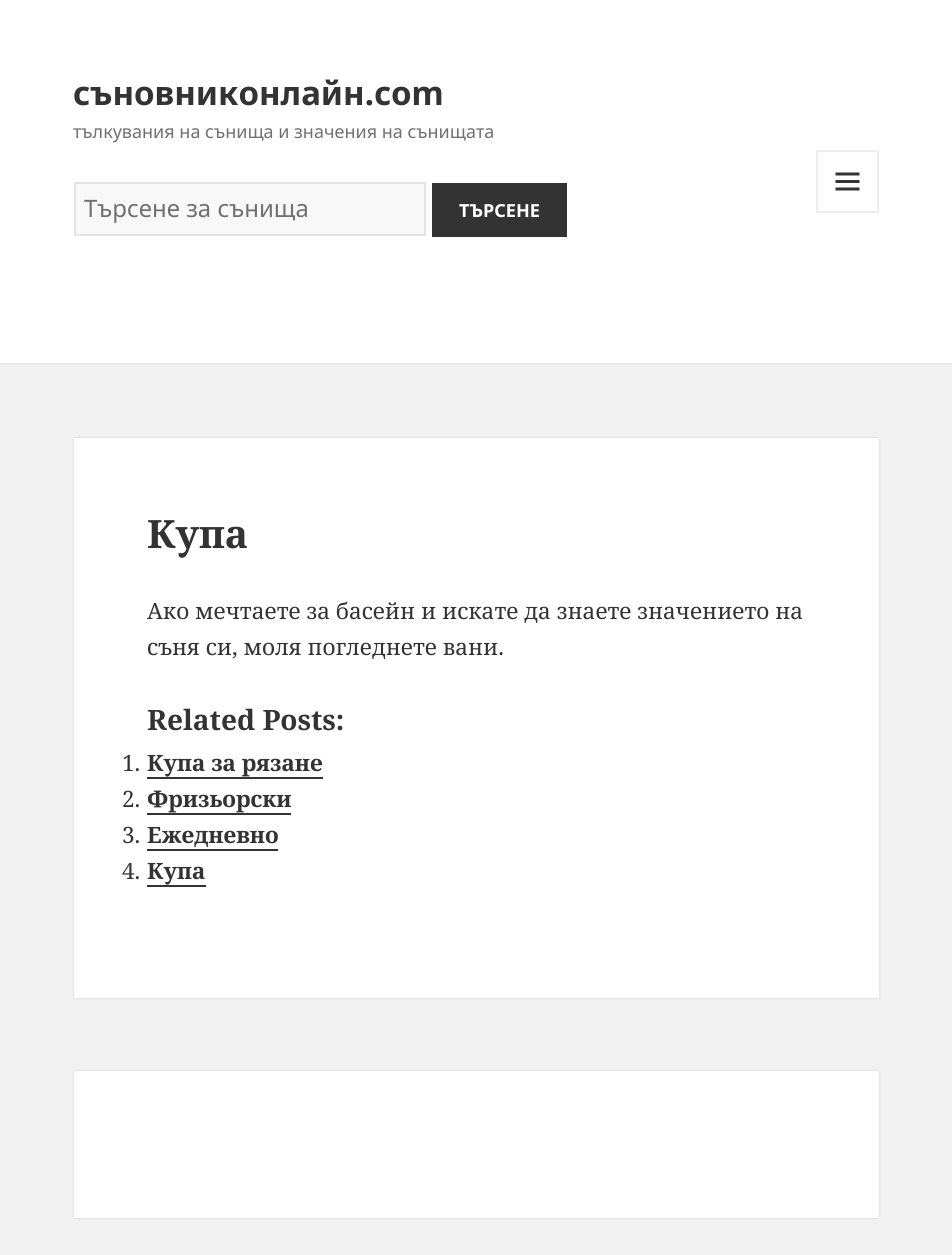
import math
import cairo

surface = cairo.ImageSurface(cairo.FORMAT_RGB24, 952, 1255)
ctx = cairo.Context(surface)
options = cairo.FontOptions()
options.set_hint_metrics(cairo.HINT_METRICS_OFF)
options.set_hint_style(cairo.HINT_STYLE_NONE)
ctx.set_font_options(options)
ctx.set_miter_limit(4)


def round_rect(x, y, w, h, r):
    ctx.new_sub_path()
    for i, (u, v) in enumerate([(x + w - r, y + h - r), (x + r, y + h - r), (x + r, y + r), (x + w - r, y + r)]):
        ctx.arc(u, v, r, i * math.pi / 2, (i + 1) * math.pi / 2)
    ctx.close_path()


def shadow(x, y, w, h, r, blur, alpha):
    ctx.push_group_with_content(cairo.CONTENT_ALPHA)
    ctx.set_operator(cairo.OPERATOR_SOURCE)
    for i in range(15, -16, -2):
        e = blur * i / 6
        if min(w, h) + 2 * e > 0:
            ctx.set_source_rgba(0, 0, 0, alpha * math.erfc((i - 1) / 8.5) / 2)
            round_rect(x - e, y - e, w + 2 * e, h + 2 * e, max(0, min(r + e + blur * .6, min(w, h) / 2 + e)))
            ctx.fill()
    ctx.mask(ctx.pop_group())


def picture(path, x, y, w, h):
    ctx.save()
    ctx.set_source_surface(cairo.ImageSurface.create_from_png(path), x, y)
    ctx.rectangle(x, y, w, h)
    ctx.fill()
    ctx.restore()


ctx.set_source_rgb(0.945, 0.945, 0.945)
ctx.paint()
ctx.set_source_rgb(1, 1, 1)
ctx.rectangle(0, 0, 952, 363)
ctx.fill()
ctx.set_source_rgb(0.922, 0.922, 0.922)
ctx.rectangle(0, 363, 952, 2)
ctx.fill()
ctx.select_font_face("Noto Sans", cairo.FONT_SLANT_NORMAL, cairo.FONT_WEIGHT_BOLD)
ctx.set_font_size(33)
ctx.set_source_rgb(0.2, 0.2, 0.2)
ctx.move_to(73, 105)
ctx.show_text("съновниконлайн.com")
ctx.select_font_face("Noto Sans")
ctx.set_font_size(18)
ctx.set_source_rgb(0.439, 0.439, 0.439)
ctx.move_to(73, 138)
ctx.show_text("тълкувания на сънища и значения на сънищата")
ctx.set_source_rgb(0.969, 0.969, 0.969)
ctx.rectangle(75, 183, 350, 52)
ctx.fill_preserve()
ctx.set_source_rgb(0.89, 0.89, 0.89)
ctx.stroke()
ctx.set_font_size(24)
ctx.set_source_rgb(0.439, 0.439, 0.439)
ctx.move_to(84, 217)
ctx.show_text("Търсене за сънища")
ctx.set_source_rgb(0.2, 0.2, 0.2)
ctx.rectangle(432, 183, 135, 54)
ctx.fill()
ctx.select_font_face("Noto Sans", cairo.FONT_SLANT_NORMAL, cairo.FONT_WEIGHT_BOLD)
ctx.set_font_size(18)
ctx.set_source_rgb(1, 1, 1)
ctx.move_to(459, 217)
ctx.show_text("ТЪРСЕНЕ")
ctx.rectangle(817, 151, 61, 61)
ctx.set_source_rgb(0.922, 0.922, 0.922)
ctx.stroke()
picture("img1.png", 835, 172, 25, 19)
ctx.set_source_rgb(0, 0, 0)
shadow(74, 438, 805, 560, 0, 1, 0.15)
ctx.set_source_rgb(1, 1, 1)
ctx.rectangle(74, 438, 805, 560)
ctx.fill()
ctx.select_font_face("Noto Serif", cairo.FONT_SLANT_NORMAL, cairo.FONT_WEIGHT_BOLD)
ctx.set_font_size(39)
ctx.set_source_rgb(0.2, 0.2, 0.2)
ctx.move_to(147, 548)
ctx.show_text("Купа")
ctx.select_font_face("Noto Serif")
ctx.set_font_size(22.5)
ctx.move_to(147, 619)
ctx.show_text("Ако мечтаете за басейн и искате да знаете значението на")
ctx.move_to(147, 655)
ctx.show_text("съня си, моля погледнете вани.")
ctx.select_font_face("Noto Serif", cairo.FONT_SLANT_NORMAL, cairo.FONT_WEIGHT_BOLD)
ctx.set_font_size(28)
ctx.move_to(147, 730)
ctx.show_text("Related Posts:")
ctx.select_font_face("Noto Serif")
ctx.set_font_size(22.5)
ctx.move_to(122, 771)
ctx.show_text("1.")
ctx.select_font_face("Noto Serif", cairo.FONT_SLANT_NORMAL, cairo.FONT_WEIGHT_BOLD)
ctx.move_to(147, 771)
ctx.show_text("Купа за рязане")
ctx.rectangle(147, 777, 176, 2)
ctx.fill()
ctx.select_font_face("Noto Serif")
ctx.move_to(122, 807)
ctx.show_text("2.")
ctx.select_font_face("Noto Serif", cairo.FONT_SLANT_NORMAL, cairo.FONT_WEIGHT_BOLD)
ctx.move_to(147, 807)
ctx.show_text("Фризьорски")
ctx.rectangle(147, 813, 144, 2)
ctx.fill()
ctx.select_font_face("Noto Serif")
ctx.move_to(122, 843)
ctx.show_text("3.")
ctx.select_font_face("Noto Serif", cairo.FONT_SLANT_NORMAL, cairo.FONT_WEIGHT_BOLD)
ctx.move_to(147, 843)
ctx.show_text("Ежедневно")
ctx.rectangle(147, 849, 131, 2)
ctx.fill()
ctx.select_font_face("Noto Serif")
ctx.move_to(122, 879)
ctx.show_text("4.")
ctx.select_font_face("Noto Serif", cairo.FONT_SLANT_NORMAL, cairo.FONT_WEIGHT_BOLD)
ctx.move_to(147, 879)
ctx.show_text("Купа")
ctx.rectangle(147, 885, 59, 2)
ctx.fill()
ctx.set_source_rgb(0, 0, 0)
shadow(74, 1071, 805, 147, 0, 1, 0.15)
ctx.set_source_rgb(1, 1, 1)
ctx.rectangle(74, 1071, 805, 147)
ctx.fill()
surface.write_to_png("page.png")
